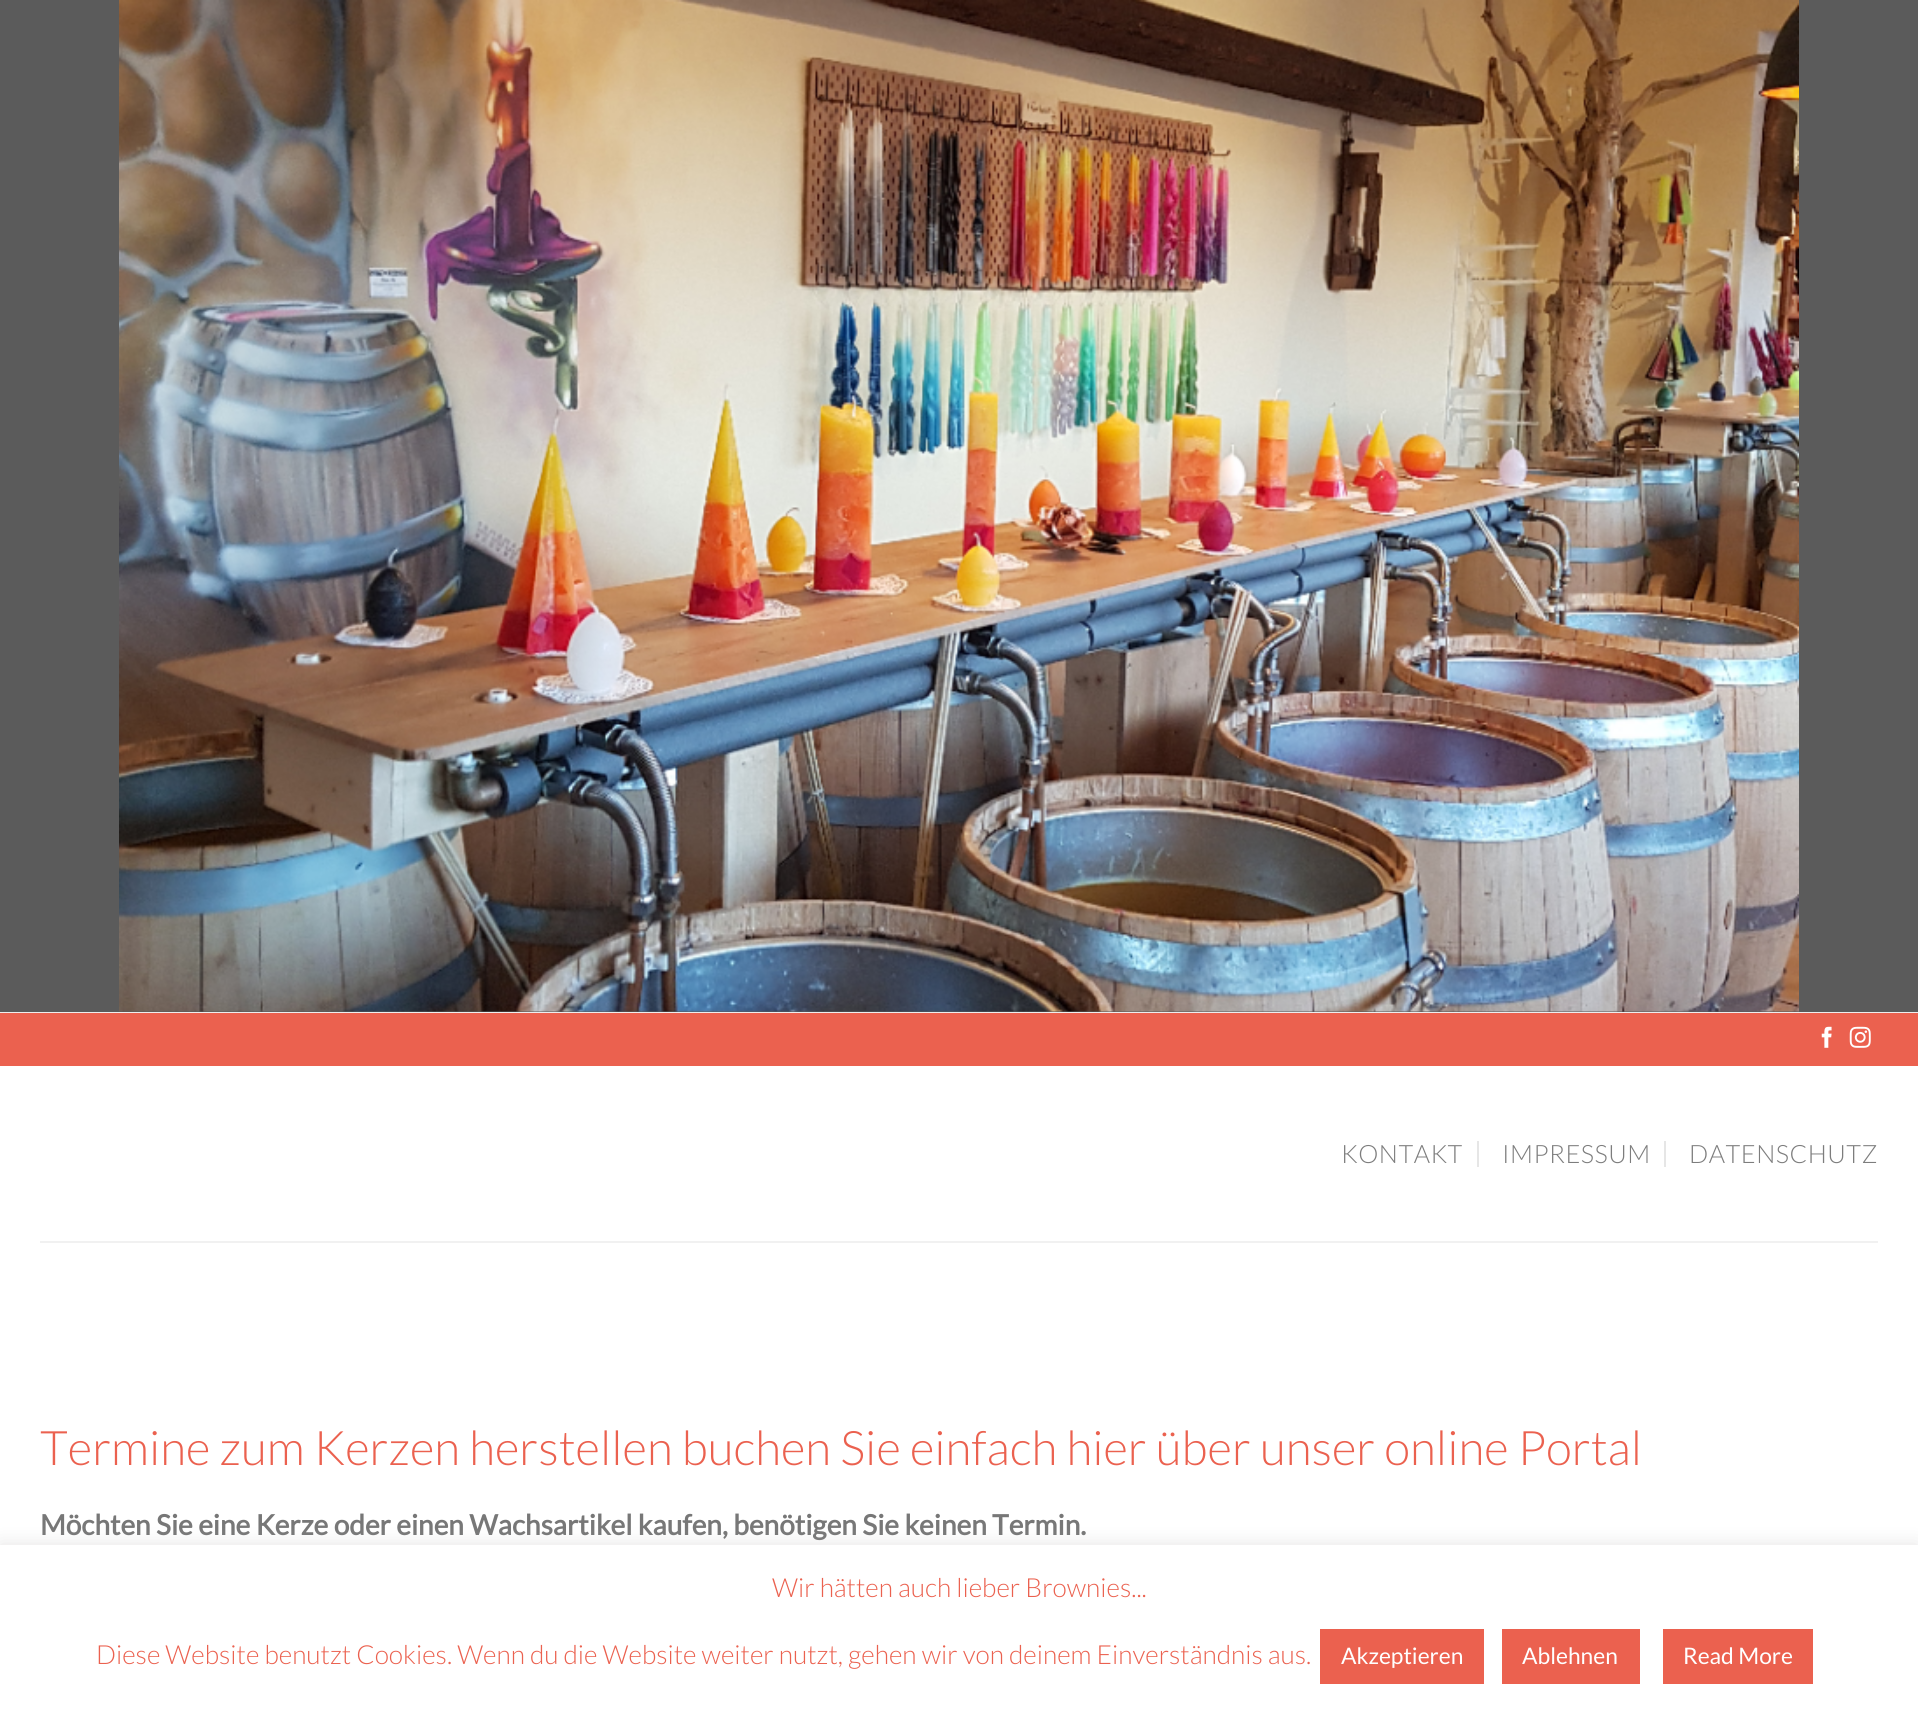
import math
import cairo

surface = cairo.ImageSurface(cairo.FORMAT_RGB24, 1918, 1712)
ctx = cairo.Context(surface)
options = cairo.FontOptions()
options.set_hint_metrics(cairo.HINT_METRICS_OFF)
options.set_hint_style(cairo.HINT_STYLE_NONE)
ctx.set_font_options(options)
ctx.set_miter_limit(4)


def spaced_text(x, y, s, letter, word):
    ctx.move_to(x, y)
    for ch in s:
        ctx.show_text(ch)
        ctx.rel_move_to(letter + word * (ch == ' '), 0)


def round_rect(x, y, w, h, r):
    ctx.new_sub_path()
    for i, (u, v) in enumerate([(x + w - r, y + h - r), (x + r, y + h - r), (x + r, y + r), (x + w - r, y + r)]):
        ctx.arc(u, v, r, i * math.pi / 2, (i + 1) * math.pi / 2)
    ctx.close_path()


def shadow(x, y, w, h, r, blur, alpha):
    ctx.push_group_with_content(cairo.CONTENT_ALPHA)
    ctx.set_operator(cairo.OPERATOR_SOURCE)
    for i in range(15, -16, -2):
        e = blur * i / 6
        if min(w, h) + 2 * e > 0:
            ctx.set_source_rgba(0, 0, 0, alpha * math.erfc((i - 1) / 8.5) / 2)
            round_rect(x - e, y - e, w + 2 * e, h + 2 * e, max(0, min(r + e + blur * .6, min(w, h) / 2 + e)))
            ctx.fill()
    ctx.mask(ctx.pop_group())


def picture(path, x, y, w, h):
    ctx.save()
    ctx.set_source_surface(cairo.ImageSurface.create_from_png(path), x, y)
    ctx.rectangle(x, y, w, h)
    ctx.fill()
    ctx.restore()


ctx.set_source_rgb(0.357, 0.357, 0.357)
ctx.paint()
ctx.set_source_rgb(0.933, 0.933, 0.933)
ctx.rectangle(0, 1012, 1918, 1)
ctx.fill()
picture("img1.png", 119, 0, 1680, 1012)
ctx.set_source_rgb(1, 1, 1)
ctx.rectangle(0, 1066, 1918, 479)
ctx.fill()
ctx.set_source_rgb(0.918, 0.38, 0.31)
ctx.rectangle(0, 1013, 1918, 53)
ctx.fill()
picture("img2.png", 1821, 1026, 11, 22)
picture("img3.png", 1849, 1026, 22, 22)
ctx.select_font_face("Lato Light")
ctx.set_font_size(25.25)
ctx.set_source_rgb(0.49, 0.49, 0.49)
spaced_text(1341, 1163, "KONTAKT", 0.5, 0)
ctx.set_source_rgb(0.902, 0.902, 0.902)
ctx.rectangle(1477, 1141, 2, 26)
ctx.fill()
ctx.set_source_rgb(0.49, 0.49, 0.49)
spaced_text(1502, 1163, "IMPRESSUM", 0.5, 0)
ctx.set_source_rgb(0.902, 0.902, 0.902)
ctx.rectangle(1664, 1141, 2, 26)
ctx.fill()
ctx.set_source_rgb(0.49, 0.49, 0.49)
spaced_text(1689, 1163, "DATENSCHUTZ", 0.5, 0)
ctx.set_source_rgb(0.945, 0.945, 0.945)
ctx.rectangle(40, 1241, 1838, 2)
ctx.fill()
ctx.set_font_size(47.6)
ctx.set_source_rgb(0.918, 0.38, 0.31)
ctx.move_to(40, 1465)
ctx.show_text("Termine zum Kerzen herstellen buchen Sie einfach hier über unser online Portal")
ctx.select_font_face("Lato", cairo.FONT_SLANT_NORMAL, cairo.FONT_WEIGHT_BOLD)
ctx.set_font_size(28)
ctx.set_source_rgb(0.467, 0.467, 0.467)
ctx.move_to(40, 1535)
ctx.show_text("Möchten Sie eine Kerze oder einen Wachsartikel kaufen, benötigen Sie keinen Termin.")
ctx.set_source_rgb(0.675, 0.671, 0.671)
shadow(0, 1544, 1918, 168, 0, 9, 0.3)
ctx.set_source_rgb(1, 1, 1)
ctx.rectangle(0, 1545, 1918, 167)
ctx.fill()
ctx.select_font_face("Lato Light")
ctx.set_font_size(26.25)
ctx.set_source_rgb(0.918, 0.38, 0.31)
ctx.move_to(772, 1597)
ctx.show_text("Wir hätten auch lieber Brownies...")
ctx.move_to(96, 1664)
ctx.show_text("Diese Website benutzt Cookies. Wenn du die Website weiter nutzt, gehen wir von deinem Einverständnis aus.")
ctx.rectangle(1320, 1629, 164, 55)
ctx.fill()
ctx.select_font_face("Lato")
ctx.set_font_size(22.75)
ctx.set_source_rgb(1, 1, 1)
ctx.move_to(1341, 1664)
ctx.show_text("Akzeptieren")
ctx.set_source_rgb(0.918, 0.38, 0.31)
ctx.rectangle(1502, 1629, 138, 55)
ctx.fill()
ctx.set_source_rgb(1, 1, 1)
ctx.move_to(1522, 1664)
ctx.show_text("Ablehnen")
ctx.set_source_rgb(0.918, 0.38, 0.31)
ctx.rectangle(1663, 1629, 150, 55)
ctx.fill()
ctx.set_source_rgb(1, 1, 1)
ctx.move_to(1683, 1664)
ctx.show_text("Read More")
surface.write_to_png("page.png")
